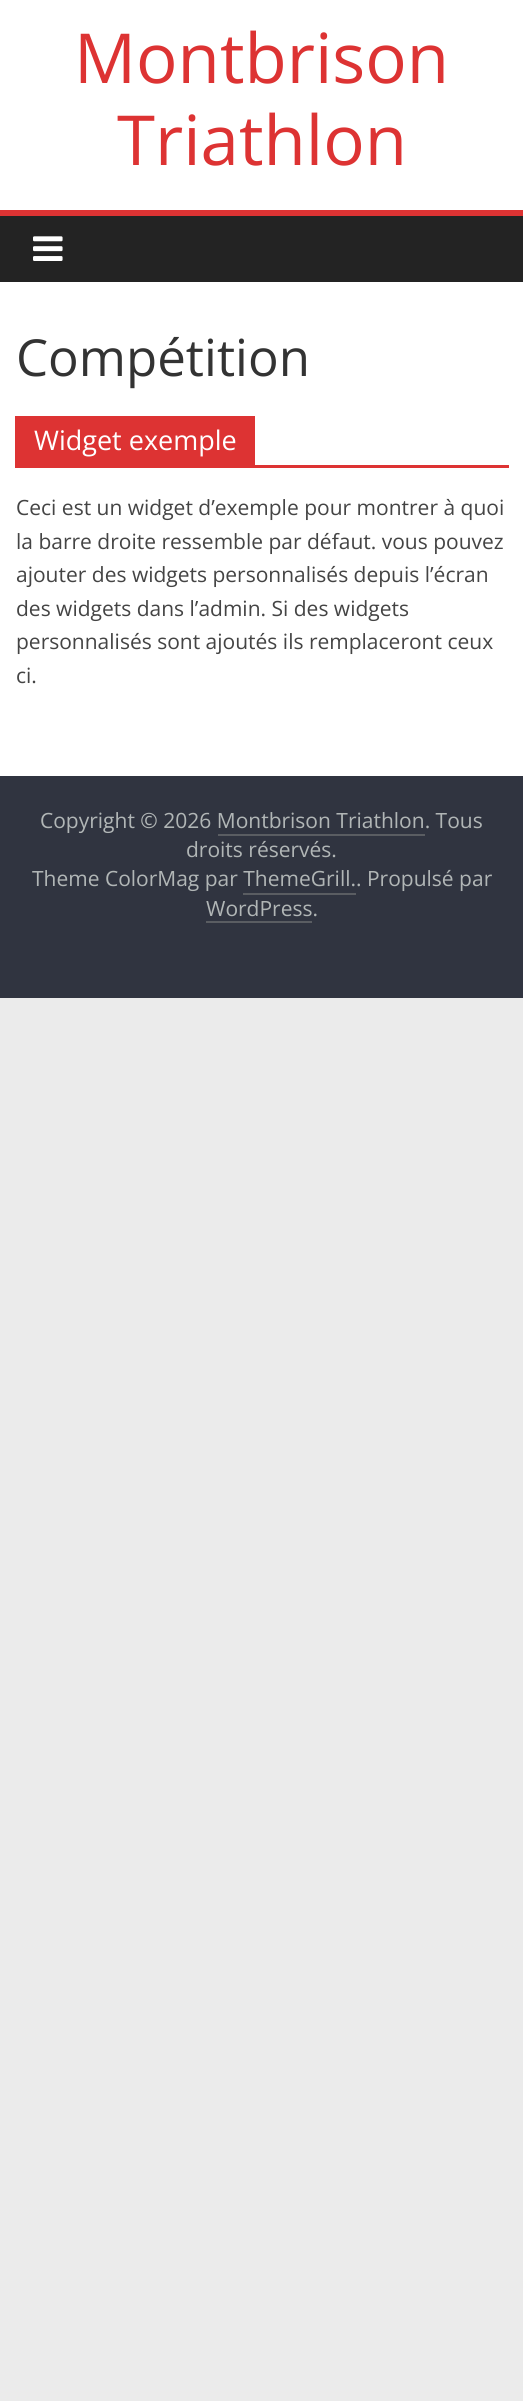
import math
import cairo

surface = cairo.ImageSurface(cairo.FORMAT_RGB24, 523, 2401)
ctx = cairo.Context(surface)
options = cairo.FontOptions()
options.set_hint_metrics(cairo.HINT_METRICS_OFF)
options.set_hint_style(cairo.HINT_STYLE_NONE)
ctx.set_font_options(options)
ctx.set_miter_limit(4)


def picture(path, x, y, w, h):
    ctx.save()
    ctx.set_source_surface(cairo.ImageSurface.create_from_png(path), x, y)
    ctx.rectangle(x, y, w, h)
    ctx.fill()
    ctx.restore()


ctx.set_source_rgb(0.918, 0.918, 0.918)
ctx.paint()
ctx.set_source_rgb(1, 1, 1)
ctx.rectangle(0, 0, 523, 210)
ctx.fill()
ctx.select_font_face("Open Sans")
ctx.set_font_size(69)
ctx.set_source_rgb(0.867, 0.2, 0.2)
ctx.move_to(74, 83)
ctx.show_text("Montbrison")
ctx.move_to(117, 165)
ctx.show_text("Triathlon")
ctx.set_source_rgb(0.137, 0.137, 0.137)
ctx.rectangle(0, 216, 523, 66)
ctx.fill()
ctx.set_source_rgb(0.867, 0.2, 0.2)
ctx.rectangle(0, 210, 523, 6)
ctx.fill()
picture("img1.png", 33, 236, 30, 25)
ctx.set_source_rgb(1, 1, 1)
ctx.rectangle(0, 282, 523, 494)
ctx.fill()
ctx.set_font_size(51)
ctx.set_source_rgb(0.2, 0.2, 0.2)
ctx.move_to(16, 376)
ctx.show_text("Compétition")
ctx.set_source_rgb(0.867, 0.2, 0.2)
ctx.rectangle(15, 465, 494, 3)
ctx.fill()
ctx.rectangle(15, 416, 240, 49)
ctx.fill()
ctx.set_font_size(27)
ctx.set_source_rgb(1, 1, 1)
ctx.move_to(34, 450)
ctx.show_text("Widget exemple")
ctx.set_font_size(21)
ctx.set_source_rgb(0.267, 0.267, 0.267)
ctx.move_to(16, 515)
ctx.show_text("Ceci est un widget d’exemple pour montrer à quoi")
ctx.move_to(16, 549)
ctx.show_text("la barre droite ressemble par défaut. vous pouvez")
ctx.move_to(16, 582)
ctx.show_text("ajouter des widgets personnalisés depuis l’écran")
ctx.move_to(16, 616)
ctx.show_text("des widgets dans l’admin. Si des widgets")
ctx.move_to(16, 649)
ctx.show_text("personnalisés sont ajoutés ils remplaceront ceux")
ctx.move_to(16, 683)
ctx.show_text("ci.")
ctx.set_source_rgb(0.188, 0.204, 0.251)
ctx.rectangle(0, 776, 523, 222)
ctx.fill()
ctx.set_source_rgb(0.694, 0.714, 0.714)
ctx.move_to(40, 828)
ctx.show_text("Copyright © 2026 Montbrison Triathlon. Tous")
ctx.set_source_rgb(0.353, 0.365, 0.384)
ctx.rectangle(218, 834, 207, 2)
ctx.fill()
ctx.set_source_rgb(0.694, 0.714, 0.714)
ctx.move_to(186, 857)
ctx.show_text("droits réservés.")
ctx.move_to(32, 886)
ctx.show_text("Theme ColorMag par ThemeGrill.. Propulsé par")
ctx.set_source_rgb(0.353, 0.365, 0.384)
ctx.rectangle(243, 893, 113, 2)
ctx.fill()
ctx.set_source_rgb(0.694, 0.714, 0.714)
ctx.move_to(206, 916)
ctx.show_text("WordPress.")
ctx.set_source_rgb(0.353, 0.365, 0.384)
ctx.rectangle(206, 921, 106, 2)
ctx.fill()
surface.write_to_png("page.png")
